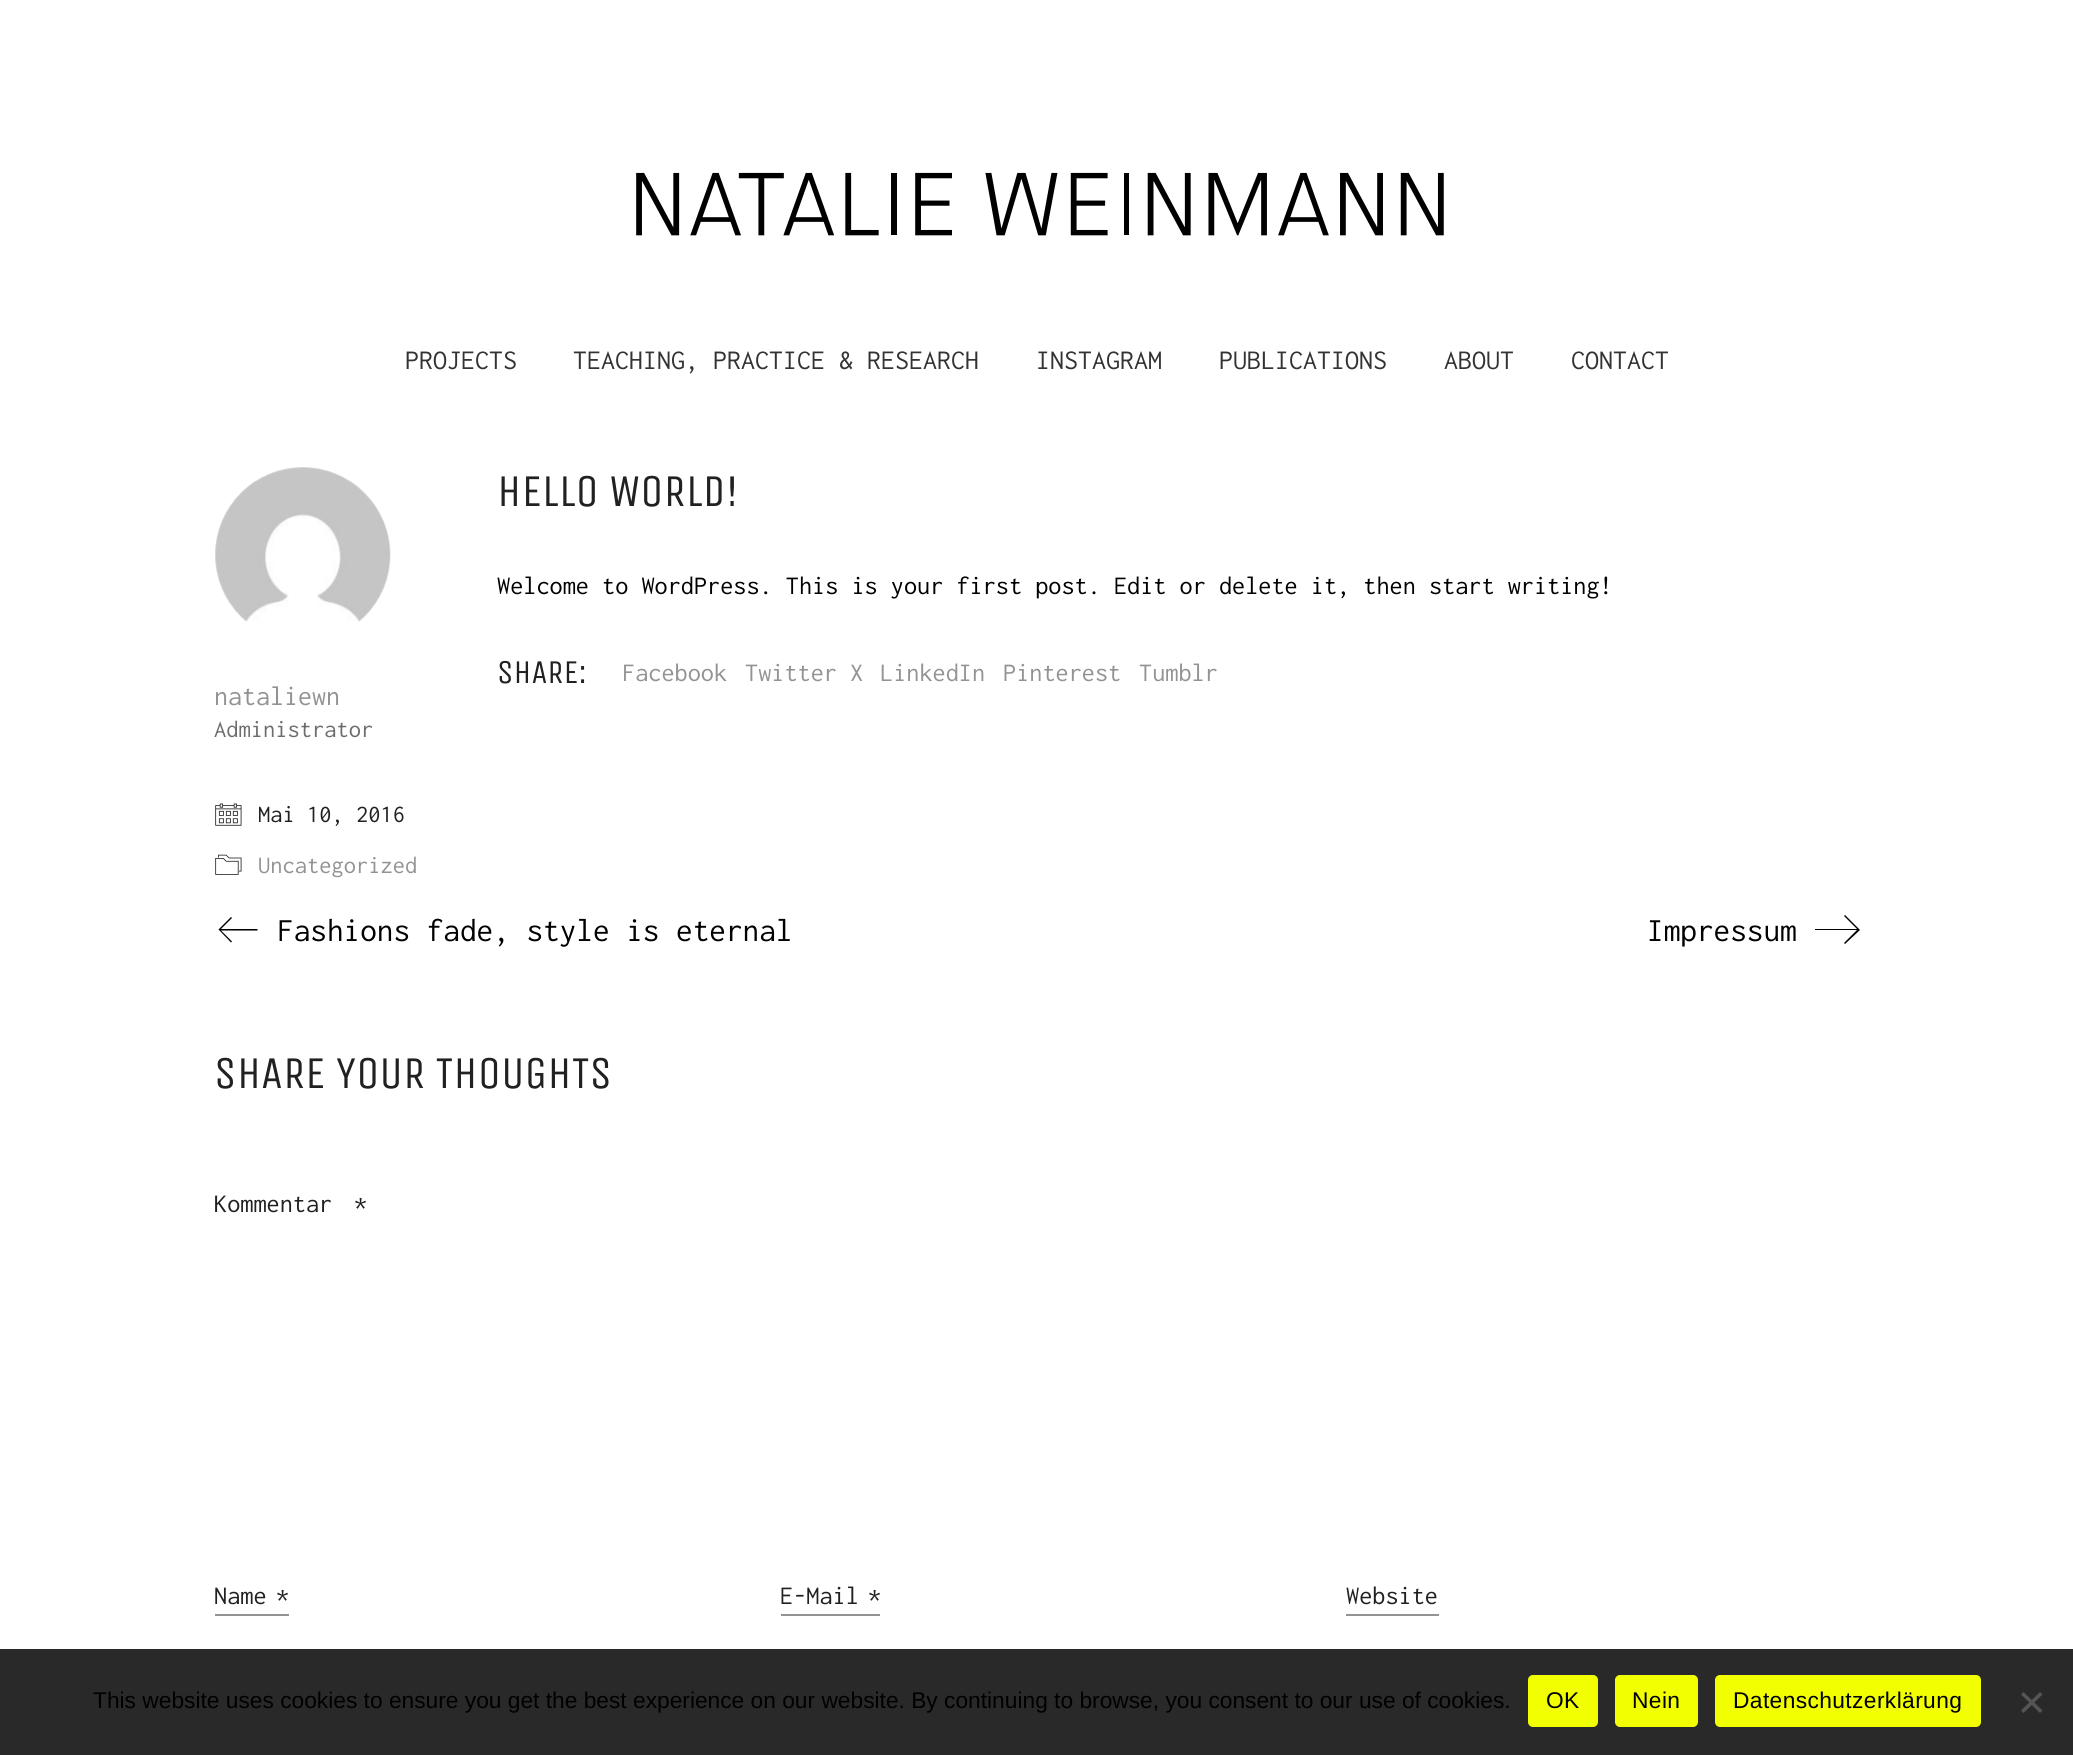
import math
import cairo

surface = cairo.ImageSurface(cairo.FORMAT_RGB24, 2073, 1755)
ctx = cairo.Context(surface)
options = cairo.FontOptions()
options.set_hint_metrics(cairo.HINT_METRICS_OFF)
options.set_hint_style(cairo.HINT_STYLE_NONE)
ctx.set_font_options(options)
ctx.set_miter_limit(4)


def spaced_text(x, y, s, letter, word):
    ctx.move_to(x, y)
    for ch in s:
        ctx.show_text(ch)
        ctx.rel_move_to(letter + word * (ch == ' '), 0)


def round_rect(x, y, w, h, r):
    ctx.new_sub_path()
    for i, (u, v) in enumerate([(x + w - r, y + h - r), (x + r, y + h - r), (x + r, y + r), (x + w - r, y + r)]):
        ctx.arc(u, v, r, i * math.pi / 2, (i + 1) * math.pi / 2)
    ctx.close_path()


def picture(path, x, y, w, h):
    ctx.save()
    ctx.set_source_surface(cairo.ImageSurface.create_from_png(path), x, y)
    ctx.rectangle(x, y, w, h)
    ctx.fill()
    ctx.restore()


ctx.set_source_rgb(1, 1, 1)
ctx.paint()
picture("img1.png", 636, 172, 808, 64)
ctx.select_font_face("Inconsolata")
ctx.set_font_size(28)
ctx.set_source_rgb(0.2, 0.2, 0.2)
ctx.move_to(405, 369)
ctx.show_text("PROJECTS")
ctx.move_to(573, 369)
ctx.show_text("TEACHING, PRACTICE & RESEARCH")
ctx.move_to(1036, 369)
ctx.show_text("INSTAGRAM")
ctx.move_to(1219, 369)
ctx.show_text("PUBLICATIONS")
ctx.move_to(1444, 369)
ctx.show_text("ABOUT")
ctx.move_to(1571, 369)
ctx.show_text("CONTACT")
ctx.select_font_face("Unica One")
ctx.set_font_size(45.5)
ctx.set_source_rgb(0.129, 0.129, 0.129)
ctx.move_to(497, 506)
ctx.show_text("HELLO WORLD!")
ctx.select_font_face("Inconsolata")
ctx.set_font_size(26.25)
ctx.set_source_rgb(0, 0, 0)
ctx.move_to(497, 594)
ctx.show_text("Welcome to WordPress. This is your first post. Edit or delete it, then start writing!")
ctx.select_font_face("Unica One")
ctx.set_font_size(33.25)
ctx.set_source_rgb(0.129, 0.129, 0.129)
ctx.move_to(497, 683)
ctx.show_text("SHARE:")
ctx.select_font_face("Inconsolata")
ctx.set_font_size(26.25)
ctx.set_source_rgb(0.576, 0.576, 0.576)
ctx.move_to(622, 681)
ctx.show_text("Facebook")
ctx.move_to(745, 681)
ctx.show_text("Twitter X")
ctx.move_to(880, 681)
ctx.show_text("LinkedIn")
ctx.move_to(1003, 681)
ctx.show_text("Pinterest")
ctx.move_to(1139, 681)
ctx.show_text("Tumblr")
picture("img2.png", 215, 467, 176, 155)
ctx.set_font_size(28)
ctx.move_to(214, 705)
ctx.show_text("nataliewn")
ctx.set_font_size(24.5)
ctx.set_source_rgb(0.427, 0.427, 0.427)
ctx.move_to(214, 737)
ctx.show_text("Administrator")
picture("img3.png", 215, 803, 27, 23)
ctx.set_source_rgb(0.129, 0.129, 0.129)
ctx.move_to(258, 822)
ctx.show_text("Mai 10, 2016")
picture("img4.png", 215, 854, 27, 21)
ctx.set_source_rgb(0.576, 0.576, 0.576)
ctx.move_to(258, 873)
ctx.show_text("Uncategorized")
ctx.set_source_rgb(0, 0, 0)
ctx.new_path()
ctx.move_to(257.5, 929)
ctx.line_to(221, 929)
ctx.line_to(232, 918)
ctx.line_to(231, 917)
ctx.line_to(218.5, 929.5)
ctx.line_to(231, 942.5)
ctx.line_to(232, 941.5)
ctx.line_to(221, 930.5)
ctx.line_to(257.5, 930.5)
ctx.close_path()
ctx.fill()
ctx.set_font_size(33.25)
ctx.move_to(277, 941)
ctx.show_text("Fashions fade, style is eternal")
ctx.move_to(1647, 941)
ctx.show_text("Impressum")
ctx.new_path()
ctx.move_to(1845, 915)
ctx.line_to(1844, 916)
ctx.line_to(1857, 929)
ctx.line_to(1815, 929)
ctx.line_to(1815, 930)
ctx.line_to(1857, 930)
ctx.line_to(1844, 943)
ctx.line_to(1845, 944)
ctx.line_to(1860, 930)
ctx.close_path()
ctx.fill()
ctx.select_font_face("Unica One")
ctx.set_font_size(45.5)
ctx.set_source_rgb(0.129, 0.129, 0.129)
ctx.move_to(214, 1088)
ctx.show_text("SHARE YOUR THOUGHTS")
ctx.select_font_face("Inconsolata")
ctx.set_font_size(26.25)
ctx.move_to(214, 1212)
ctx.show_text("Kommentar")
ctx.move_to(354, 1212)
ctx.show_text("*")
ctx.set_source_rgb(0.576, 0.576, 0.576)
ctx.rectangle(215, 1614, 74, 2)
ctx.fill()
ctx.set_source_rgb(0.129, 0.129, 0.129)
ctx.move_to(214, 1604)
ctx.show_text("Name")
ctx.move_to(276, 1604)
ctx.show_text("*")
ctx.set_source_rgb(0.576, 0.576, 0.576)
ctx.rectangle(781, 1614, 99, 2)
ctx.fill()
ctx.set_source_rgb(0.129, 0.129, 0.129)
ctx.move_to(780, 1604)
ctx.show_text("E-Mail")
ctx.move_to(868, 1604)
ctx.show_text("*")
ctx.set_source_rgb(0.576, 0.576, 0.576)
ctx.rectangle(1346, 1614, 93, 2)
ctx.fill()
ctx.set_source_rgb(0.129, 0.129, 0.129)
ctx.move_to(1346, 1604)
ctx.show_text("Website")
ctx.set_source_rgb(0.161, 0.161, 0.161)
ctx.rectangle(0, 1649, 2073, 106)
ctx.fill()
ctx.select_font_face("Liberation Sans")
ctx.set_font_size(22.75)
ctx.set_source_rgb(0, 0, 0)
ctx.move_to(93, 1708)
ctx.show_text("This website uses cookies to ensure you get the best experience on our website. By continuing to browse, you consent to our use of cookies.")
ctx.set_source_rgb(0.949, 1, 0)
round_rect(1528, 1675, 70, 52, 5)
ctx.fill()
ctx.set_source_rgb(0, 0, 0)
spaced_text(1546, 1708, "OK", 0.4, 0)
ctx.set_source_rgb(0.949, 1, 0)
round_rect(1615, 1675, 83, 52, 5)
ctx.fill()
ctx.set_source_rgb(0, 0, 0)
spaced_text(1632, 1708, "Nein", 0.4, 0)
ctx.set_source_rgb(0.949, 1, 0)
round_rect(1715, 1675, 266, 52, 5)
ctx.fill()
ctx.set_source_rgb(0, 0, 0)
spaced_text(1733, 1708, "Datenschutzerklärung", 0.4, 0)
ctx.set_source_rgb(0.333, 0.333, 0.333)
ctx.new_path()
ctx.move_to(2040, 1692)
ctx.line_to(2042.5, 1694.5)
ctx.line_to(2023.5, 1713)
ctx.line_to(2021, 1710.5)
ctx.close_path()
ctx.fill()
ctx.new_path()
ctx.move_to(2021, 1694.5)
ctx.line_to(2023.5, 1692)
ctx.line_to(2042.5, 1710.5)
ctx.line_to(2040, 1713)
ctx.close_path()
ctx.fill()
surface.write_to_png("page.png")
